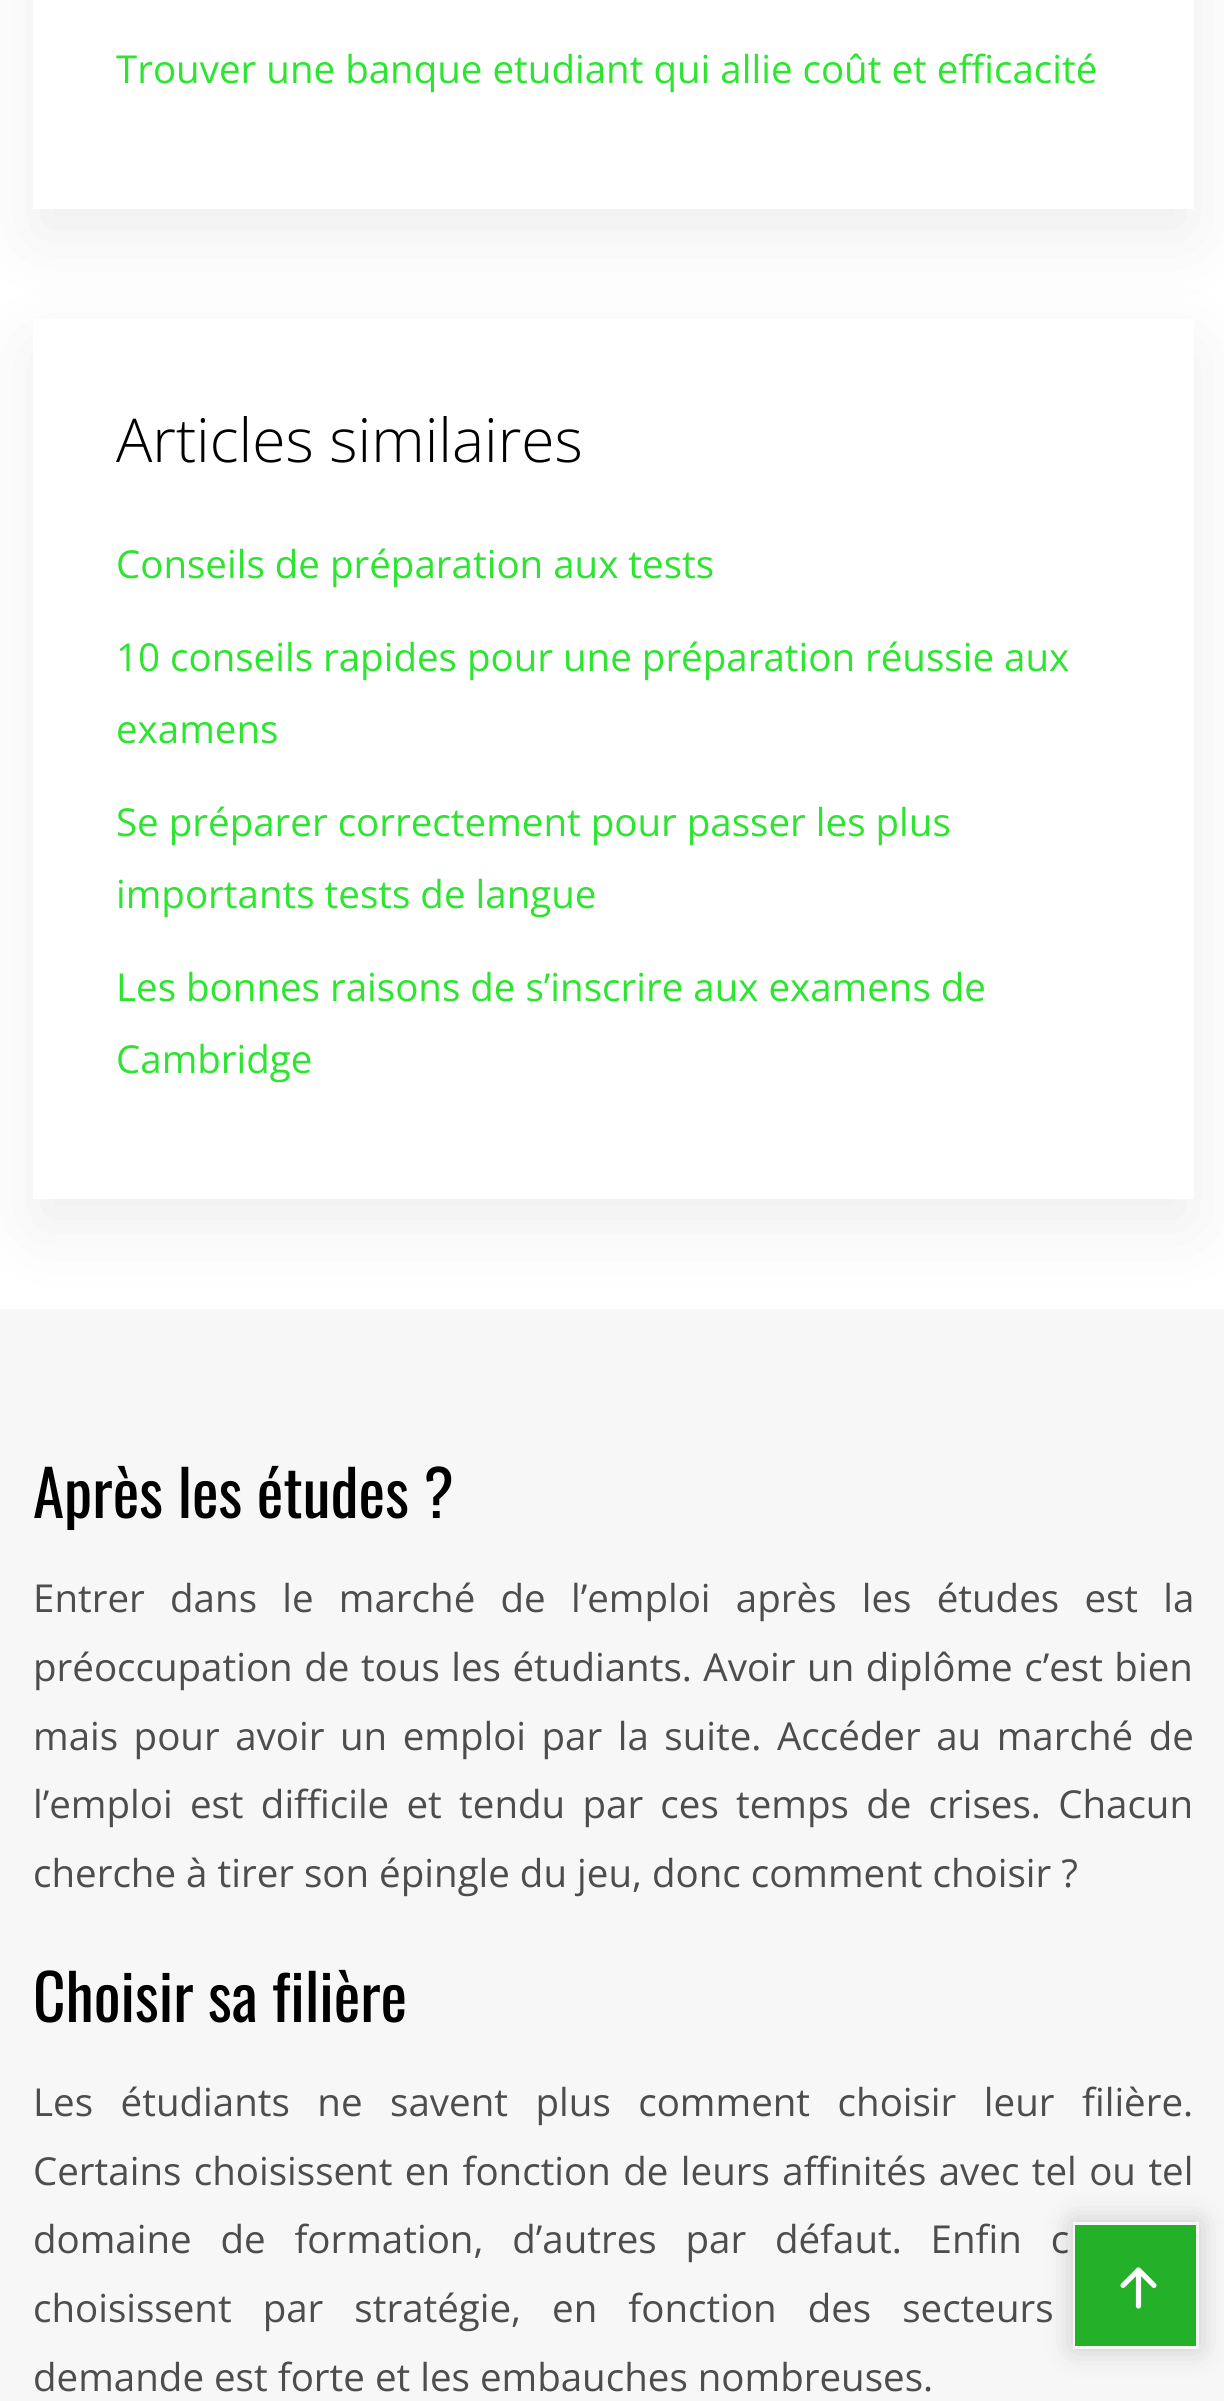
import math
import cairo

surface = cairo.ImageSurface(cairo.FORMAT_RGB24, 1224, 2401)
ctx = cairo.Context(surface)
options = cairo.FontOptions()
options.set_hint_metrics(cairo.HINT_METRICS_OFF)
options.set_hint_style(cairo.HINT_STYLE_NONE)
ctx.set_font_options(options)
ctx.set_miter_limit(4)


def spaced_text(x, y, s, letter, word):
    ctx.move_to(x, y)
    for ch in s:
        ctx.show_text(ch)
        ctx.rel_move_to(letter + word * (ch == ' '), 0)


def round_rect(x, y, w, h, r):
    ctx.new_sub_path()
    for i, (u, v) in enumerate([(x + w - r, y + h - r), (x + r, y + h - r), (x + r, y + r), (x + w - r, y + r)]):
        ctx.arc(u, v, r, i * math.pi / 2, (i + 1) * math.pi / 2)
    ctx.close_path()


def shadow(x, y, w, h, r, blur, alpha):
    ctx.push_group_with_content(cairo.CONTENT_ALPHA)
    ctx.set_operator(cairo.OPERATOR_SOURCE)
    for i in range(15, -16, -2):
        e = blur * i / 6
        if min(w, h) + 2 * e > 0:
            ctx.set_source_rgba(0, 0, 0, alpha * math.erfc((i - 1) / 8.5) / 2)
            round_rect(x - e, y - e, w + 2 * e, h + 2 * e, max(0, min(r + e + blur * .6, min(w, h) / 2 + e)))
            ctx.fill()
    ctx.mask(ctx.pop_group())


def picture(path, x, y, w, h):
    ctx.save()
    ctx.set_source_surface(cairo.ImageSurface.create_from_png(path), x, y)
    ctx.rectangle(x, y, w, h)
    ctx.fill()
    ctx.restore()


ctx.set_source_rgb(1, 1, 1)
ctx.paint()
ctx.set_source_rgb(0, 0, 0)
shadow(33, -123, 1161, 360, 0, 41, 0.07)
ctx.set_source_rgb(1, 1, 1)
ctx.rectangle(33, 0, 1161, 209)
ctx.fill()
ctx.select_font_face("Open Sans")
ctx.set_font_size(38.5)
ctx.set_source_rgb(0.169, 0.898, 0.184)
ctx.move_to(116, 83)
ctx.show_text("Trouver une banque etudiant qui allie coût et efficacité")
ctx.set_source_rgb(0.965, 0.965, 0.965)
ctx.rectangle(0, 1309, 1224, 1092)
ctx.fill()
ctx.set_source_rgb(0, 0, 0)
shadow(33, 347, 1161, 880, 0, 41, 0.07)
ctx.set_source_rgb(1, 1, 1)
ctx.rectangle(33, 319, 1161, 880)
ctx.fill()
ctx.select_font_face("Open Sans Light")
ctx.set_font_size(60.5)
ctx.set_source_rgb(0, 0, 0)
ctx.move_to(116, 462)
ctx.show_text("Articles similaires")
ctx.select_font_face("Open Sans")
ctx.set_font_size(38.5)
ctx.set_source_rgb(0.169, 0.898, 0.184)
ctx.move_to(116, 578)
ctx.show_text("Conseils de préparation aux tests")
ctx.move_to(116, 671)
ctx.show_text("10 conseils rapides pour une préparation réussie aux")
ctx.move_to(116, 743)
ctx.show_text("examens")
ctx.move_to(116, 836)
ctx.show_text("Se préparer correctement pour passer les plus")
ctx.move_to(116, 908)
ctx.show_text("importants tests de langue")
ctx.move_to(116, 1001)
ctx.show_text("Les bonnes raisons de s’inscrire aux examens de")
ctx.move_to(116, 1073)
ctx.show_text("Cambridge")
ctx.select_font_face("Oswald")
ctx.set_font_size(63.25)
ctx.set_source_rgb(0, 0, 0)
ctx.move_to(33, 1518)
ctx.show_text("Après les études ?")
ctx.select_font_face("Open Sans")
ctx.set_font_size(38.5)
ctx.set_source_rgb(0.302, 0.302, 0.302)
spaced_text(33, 1612, "Entrer dans le marché de l’emploi après les études est la", 0, 15.25)
spaced_text(33, 1681, "préoccupation de tous les étudiants. Avoir un diplôme c’est bien", 0, 1.5)
spaced_text(33, 1750, "mais pour avoir un emploi par la suite. Accéder au marché de", 0, 5.5)
spaced_text(33, 1818, "l’emploi est difficile et tendu par ces temps de crises. Chacun", 0, 7.25)
ctx.move_to(33, 1887)
ctx.show_text("cherche à tirer son épingle du jeu, donc comment choisir ?")
ctx.select_font_face("Oswald")
ctx.set_font_size(63.25)
ctx.set_source_rgb(0, 0, 0)
ctx.move_to(33, 2022)
ctx.show_text("Choisir sa filière")
ctx.select_font_face("Open Sans")
ctx.set_font_size(38.5)
ctx.set_source_rgb(0.302, 0.302, 0.302)
spaced_text(33, 2116, "Les étudiants ne savent plus comment choisir leur filière.", 0, 17.5)
spaced_text(33, 2185, "Certains choisissent en fonction de leurs affinités avec tel ou tel", 0, 2.4)
spaced_text(33, 2253, "domaine de formation, d’autres par défaut. Enfin c", 0, 18.75)
spaced_text(33, 2322, "choisissent par stratégie, en fonction des secteurs", 0, 21)
ctx.move_to(33, 2391)
ctx.show_text("demande est forte et les embauches nombreuses.")
ctx.save()
ctx.set_fill_rule(cairo.FILL_RULE_EVEN_ODD)
ctx.new_path()
ctx.move_to(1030, 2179)
ctx.line_to(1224, 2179)
ctx.line_to(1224, 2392)
ctx.line_to(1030, 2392)
ctx.close_path()
ctx.move_to(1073, 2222)
ctx.line_to(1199, 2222)
ctx.line_to(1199, 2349)
ctx.line_to(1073, 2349)
ctx.close_path()
ctx.clip()
ctx.set_source_rgb(0, 0, 0)
shadow(1073, 2222, 126, 127, 0, 14, 0.2)
ctx.restore()
ctx.set_source_rgb(0.145, 0.69, 0.161)
ctx.rectangle(1075, 2225, 121, 121)
ctx.fill()
picture("img1.png", 1120, 2267, 37, 42)
surface.write_to_png("page.png")
